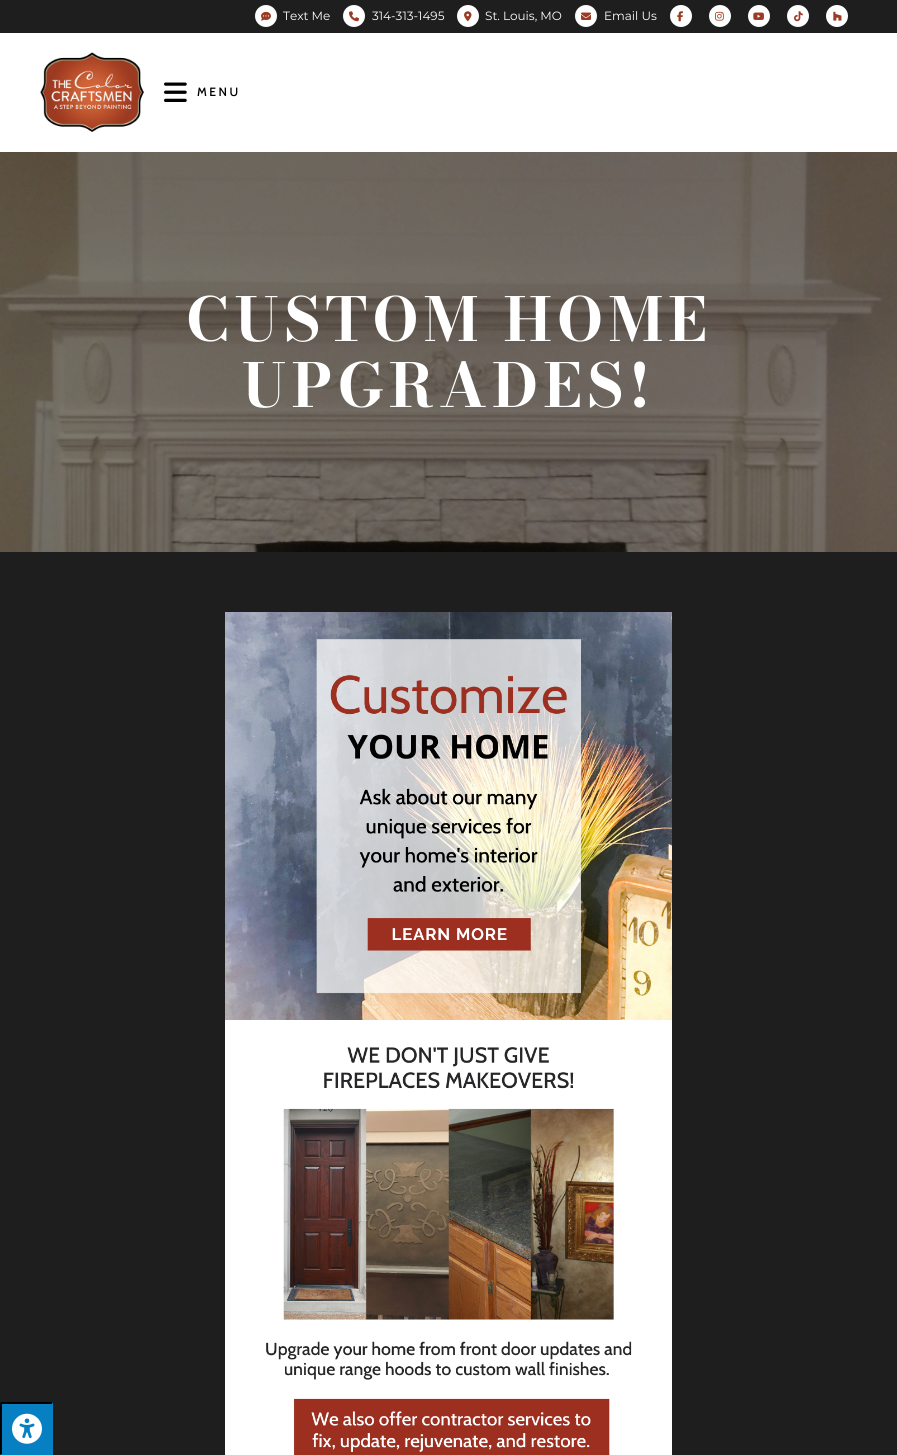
import math
import cairo

surface = cairo.ImageSurface(cairo.FORMAT_RGB24, 897, 1455)
ctx = cairo.Context(surface)
options = cairo.FontOptions()
options.set_hint_metrics(cairo.HINT_METRICS_OFF)
options.set_hint_style(cairo.HINT_STYLE_NONE)
ctx.set_font_options(options)
ctx.set_miter_limit(4)


def spaced_text(x, y, s, letter, word):
    ctx.move_to(x, y)
    for ch in s:
        ctx.show_text(ch)
        ctx.rel_move_to(letter + word * (ch == ' '), 0)


def picture(path, x, y, w, h):
    ctx.save()
    ctx.set_source_surface(cairo.ImageSurface.create_from_png(path), x, y)
    ctx.rectangle(x, y, w, h)
    ctx.fill()
    ctx.restore()


ctx.set_source_rgb(0.118, 0.118, 0.118)
ctx.paint()
ctx.set_source_rgb(1, 1, 1)
ctx.arc(266, 16, 11, 0, 2 * math.pi)
ctx.fill()
picture("img1.png", 261, 11, 10, 10)
ctx.select_font_face("Montserrat")
ctx.set_font_size(12)
ctx.move_to(283, 20)
ctx.show_text("Text Me")
ctx.new_path()
ctx.arc(354, 16, 11, 0, 2 * math.pi)
ctx.fill()
picture("img2.png", 349, 11, 10, 11)
ctx.move_to(372, 20)
ctx.show_text("314-313-1495")
ctx.new_path()
ctx.arc(468, 16, 11, 0, 2 * math.pi)
ctx.fill()
picture("img3.png", 464, 11, 8, 11)
ctx.move_to(485, 20)
ctx.show_text("St. Louis, MO")
ctx.new_path()
ctx.arc(586, 16, 11, 0, 2 * math.pi)
ctx.fill()
picture("img4.png", 581, 12, 10, 8)
ctx.move_to(604, 20)
ctx.show_text("Email Us")
ctx.new_path()
ctx.arc(681, 16, 11, 0, 2 * math.pi)
ctx.fill()
picture("img5.png", 677, 11, 6, 11)
ctx.arc(720, 16, 11, 0, 2 * math.pi)
ctx.fill()
picture("img6.png", 715, 11, 9, 10)
ctx.arc(759, 16, 11, 0, 2 * math.pi)
ctx.fill()
picture("img7.png", 753, 12, 11, 8)
ctx.arc(798, 16, 11, 0, 2 * math.pi)
ctx.fill()
picture("img8.png", 794, 11, 9, 11)
ctx.arc(837, 16, 11, 0, 2 * math.pi)
ctx.fill()
picture("img9.png", 833, 11, 9, 10)
ctx.rectangle(0, 33, 897, 119)
ctx.fill()
picture("img10.png", 40, 52, 104, 80)
picture("img11.png", 164, 82, 23, 20)
ctx.select_font_face("Cabin Medium")
ctx.set_source_rgb(0, 0, 0)
spaced_text(197, 96, "MENU", 2.5, 0)
picture("img12.png", 0, 152, 897, 400)
ctx.select_font_face("Bodoni Moda", cairo.FONT_SLANT_NORMAL, cairo.FONT_WEIGHT_BOLD)
ctx.set_font_size(60)
ctx.set_source_rgb(1, 1, 1)
spaced_text(186, 341, "CUSTOM HOME", 5, 0)
spaced_text(242, 407, "UPGRADES!", 5, 0)
picture("img13.png", 225, 612, 447, 843)
ctx.set_source_rgb(0.027, 0.502, 0.765)
ctx.rectangle(0, 1402, 53, 53)
ctx.fill()
ctx.set_source_rgb(0, 0, 0)
ctx.new_path()
ctx.move_to(0, 1402)
ctx.line_to(53, 1402)
ctx.line_to(52, 1404)
ctx.line_to(2, 1404)
ctx.close_path()
ctx.fill()
ctx.set_source_rgb(0.027, 0.502, 0.765)
ctx.new_path()
ctx.move_to(53, 1402)
ctx.line_to(53, 1455)
ctx.line_to(52, 1454)
ctx.line_to(52, 1404)
ctx.close_path()
ctx.fill()
ctx.set_source_rgb(0, 0, 0)
ctx.new_path()
ctx.move_to(0, 1455)
ctx.line_to(0, 1402)
ctx.line_to(2, 1404)
ctx.line_to(2, 1454)
ctx.close_path()
ctx.fill()
picture("img14.png", 12, 1413, 30, 31)
surface.write_to_png("page.png")
